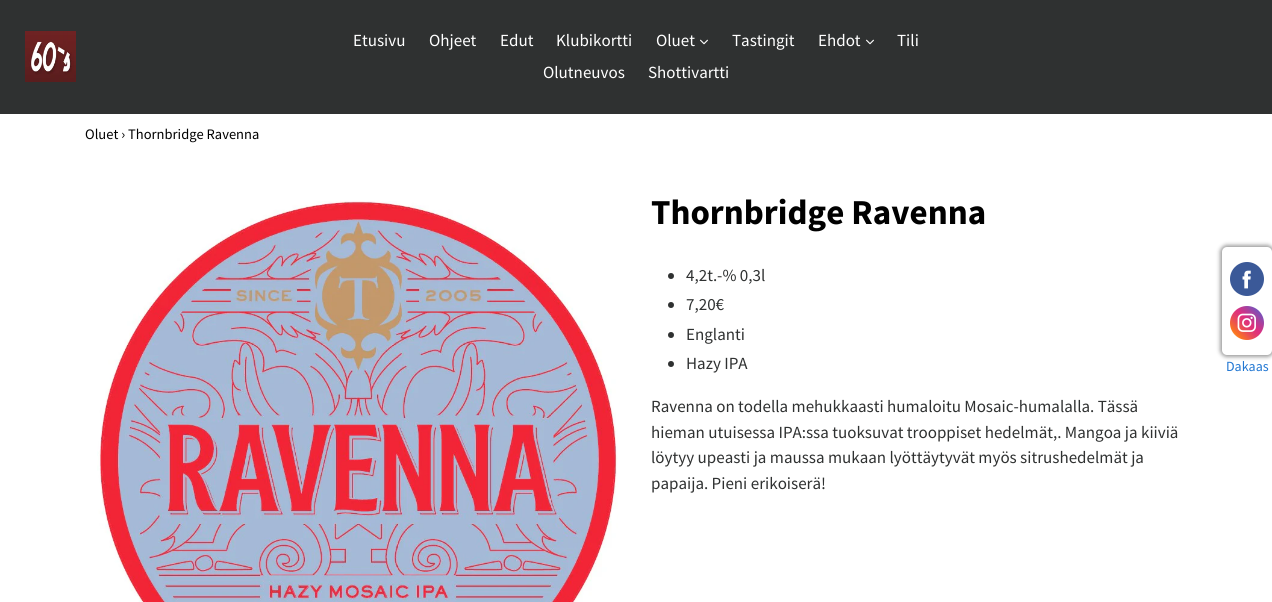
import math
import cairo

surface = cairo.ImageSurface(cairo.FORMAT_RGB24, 1272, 602)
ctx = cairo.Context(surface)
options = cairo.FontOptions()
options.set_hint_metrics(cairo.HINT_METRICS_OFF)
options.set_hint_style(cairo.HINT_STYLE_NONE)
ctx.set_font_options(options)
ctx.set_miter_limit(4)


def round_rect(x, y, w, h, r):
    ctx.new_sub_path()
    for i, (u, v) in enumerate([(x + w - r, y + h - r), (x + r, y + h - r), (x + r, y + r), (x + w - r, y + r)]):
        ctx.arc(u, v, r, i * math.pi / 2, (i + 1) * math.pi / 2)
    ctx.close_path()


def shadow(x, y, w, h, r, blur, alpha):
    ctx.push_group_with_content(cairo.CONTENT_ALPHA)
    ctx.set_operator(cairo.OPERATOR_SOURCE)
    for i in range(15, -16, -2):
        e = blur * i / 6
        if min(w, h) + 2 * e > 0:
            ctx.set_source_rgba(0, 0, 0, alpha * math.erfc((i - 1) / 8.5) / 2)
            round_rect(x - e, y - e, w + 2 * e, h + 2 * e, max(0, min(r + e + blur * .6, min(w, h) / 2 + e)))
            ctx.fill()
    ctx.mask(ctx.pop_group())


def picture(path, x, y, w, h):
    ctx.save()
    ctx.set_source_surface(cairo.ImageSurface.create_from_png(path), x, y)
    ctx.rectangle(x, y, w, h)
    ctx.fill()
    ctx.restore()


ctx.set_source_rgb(1, 1, 1)
ctx.paint()
ctx.set_source_rgb(0.184, 0.192, 0.192)
ctx.rectangle(0, 0, 1272, 114)
ctx.fill()
picture("img1.png", 25, 31, 51, 51)
ctx.select_font_face("Source Sans Pro")
ctx.set_font_size(17)
ctx.set_source_rgb(1, 1, 1)
ctx.move_to(353, 46)
ctx.show_text("Etusivu")
ctx.move_to(429, 46)
ctx.show_text("Ohjeet")
ctx.move_to(500, 46)
ctx.show_text("Edut")
ctx.move_to(556, 46)
ctx.show_text("Klubikortti")
ctx.move_to(656, 46)
ctx.show_text("Oluet")
picture("img2.png", 700, 39, 8, 6)
ctx.move_to(732, 46)
ctx.show_text("Tastingit")
ctx.move_to(818, 46)
ctx.show_text("Ehdot")
picture("img2.png", 866, 39, 8, 6)
ctx.move_to(897, 46)
ctx.show_text("Tili")
ctx.move_to(543, 78)
ctx.show_text("Olutneuvos")
ctx.move_to(648, 78)
ctx.show_text("Shottivartti")
ctx.set_font_size(14.5)
ctx.set_source_rgb(0, 0, 0)
ctx.move_to(85, 139)
ctx.show_text("Oluet › Thornbridge Ravenna")
picture("img3.png", 97, 201, 521, 401)
ctx.select_font_face("Source Sans Pro", cairo.FONT_SLANT_NORMAL, cairo.FONT_WEIGHT_BOLD)
ctx.set_font_size(35)
ctx.move_to(651, 224)
ctx.show_text("Thornbridge Ravenna")
ctx.set_source_rgb(0.184, 0.192, 0.192)
ctx.new_path()
ctx.arc(671, 276, 3, 0, 2 * math.pi)
ctx.fill()
ctx.select_font_face("Source Sans Pro")
ctx.set_font_size(17)
ctx.move_to(686, 281)
ctx.show_text("4,2t.-% 0,3l")
ctx.new_path()
ctx.arc(671, 305, 3, 0, 2 * math.pi)
ctx.fill()
ctx.move_to(686, 310)
ctx.show_text("7,20€")
ctx.new_path()
ctx.arc(671, 335, 3, 0, 2 * math.pi)
ctx.fill()
ctx.move_to(686, 340)
ctx.show_text("Englanti")
ctx.new_path()
ctx.arc(671, 364, 3, 0, 2 * math.pi)
ctx.fill()
ctx.move_to(686, 369)
ctx.show_text("Hazy IPA")
ctx.move_to(651, 412)
ctx.show_text("Ravenna on todella mehukkaasti humaloitu Mosaic-humalalla. Tässä")
ctx.move_to(651, 438)
ctx.show_text("hieman utuisessa IPA:ssa tuoksuvat trooppiset hedelmät,. Mangoa ja kiiviä")
ctx.move_to(651, 463)
ctx.show_text("löytyy upeasti ja maussa mukaan lyöttäytyvät myös sitrushedelmät ja")
ctx.move_to(651, 489)
ctx.show_text("papaija. Pieni erikoiserä!")
ctx.set_source_rgb(0.62, 0.62, 0.62)
shadow(1220, 245, 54, 112, 7, 2, 1)
ctx.set_source_rgb(1, 1, 1)
round_rect(1222, 247, 50, 108, 5)
ctx.fill()
picture("img4.png", 1230, 262, 34, 34)
picture("img5.png", 1230, 306, 34, 34)
ctx.set_font_size(14)
ctx.set_source_rgb(0.125, 0.463, 0.824)
ctx.move_to(1226, 371)
ctx.show_text("Dakaas")
surface.write_to_png("page.png")
